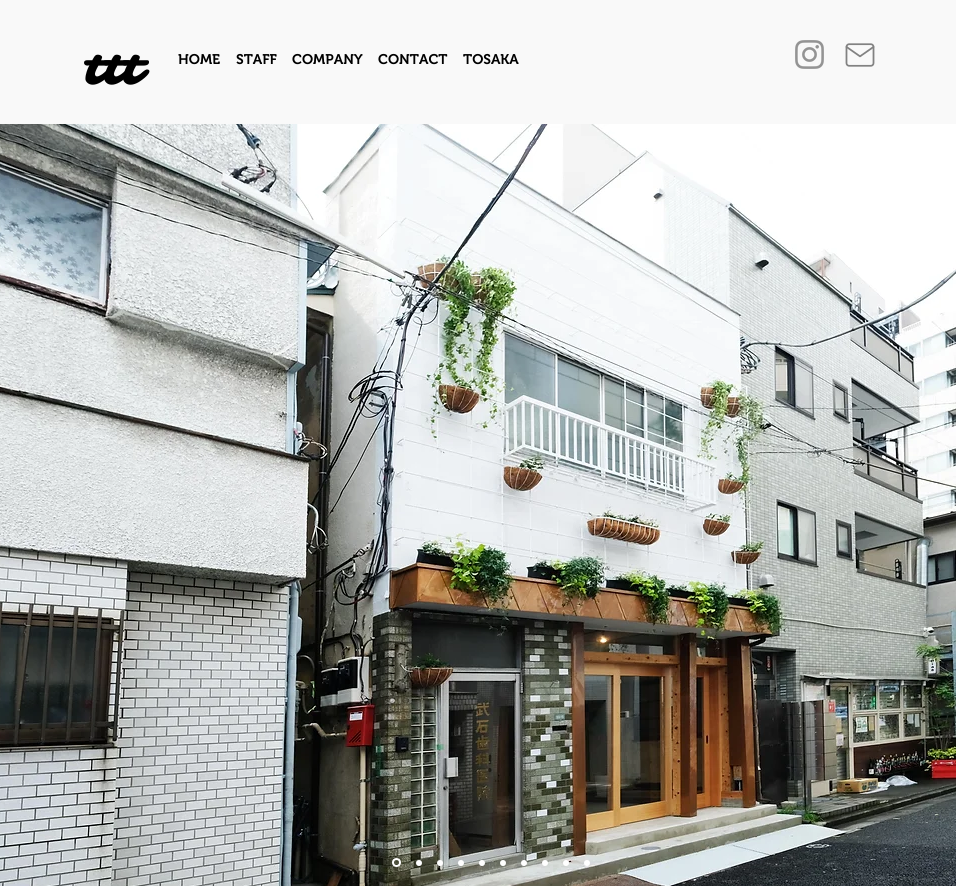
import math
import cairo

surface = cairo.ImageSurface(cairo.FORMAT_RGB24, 956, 886)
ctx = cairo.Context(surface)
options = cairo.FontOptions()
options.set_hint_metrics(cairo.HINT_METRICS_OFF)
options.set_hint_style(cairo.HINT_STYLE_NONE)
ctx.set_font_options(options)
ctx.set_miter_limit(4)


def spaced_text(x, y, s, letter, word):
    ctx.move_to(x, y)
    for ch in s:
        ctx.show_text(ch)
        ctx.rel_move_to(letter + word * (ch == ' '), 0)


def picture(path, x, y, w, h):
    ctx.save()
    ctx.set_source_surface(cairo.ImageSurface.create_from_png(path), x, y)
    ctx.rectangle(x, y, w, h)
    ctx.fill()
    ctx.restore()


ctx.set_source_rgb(1, 1, 1)
ctx.paint()
ctx.set_source_rgb(0.973, 0.973, 0.973)
ctx.rectangle(0, 0, 956, 124)
ctx.fill()
ctx.select_font_face("Sarina", cairo.FONT_SLANT_NORMAL, cairo.FONT_WEIGHT_BOLD)
ctx.set_font_size(40)
ctx.set_source_rgb(0, 0, 0)
spaced_text(87, 84, "ttt", -1, 0)
ctx.select_font_face("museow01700 SemiBold")
ctx.set_font_size(14)
ctx.move_to(178, 64)
ctx.show_text("HOME")
ctx.move_to(236, 64)
ctx.show_text("STAFF")
ctx.move_to(292, 64)
ctx.show_text("COMPANY")
ctx.move_to(378, 64)
ctx.show_text("CONTACT")
ctx.move_to(463, 64)
ctx.show_text("TOSAKA")
picture("img1.png", 795, 40, 29, 29)
picture("img2.png", 845, 43, 30, 24)
picture("img3.png", 0, 124, 956, 762)
ctx.arc(396.5, 862.5, 3.5, 0, 2 * math.pi)
ctx.set_source_rgb(1, 1, 1)
ctx.stroke()
ctx.arc(419, 863, 3, 0, 2 * math.pi)
ctx.fill()
ctx.arc(440, 863, 3, 0, 2 * math.pi)
ctx.fill()
ctx.arc(461, 863, 3, 0, 2 * math.pi)
ctx.fill()
ctx.arc(482, 863, 3, 0, 2 * math.pi)
ctx.fill()
ctx.arc(503, 863, 3, 0, 2 * math.pi)
ctx.fill()
ctx.arc(524, 863, 3, 0, 2 * math.pi)
ctx.fill()
ctx.arc(545, 863, 3, 0, 2 * math.pi)
ctx.fill()
ctx.arc(566, 863, 3, 0, 2 * math.pi)
ctx.fill()
ctx.arc(587, 863, 3, 0, 2 * math.pi)
ctx.fill()
surface.write_to_png("page.png")
